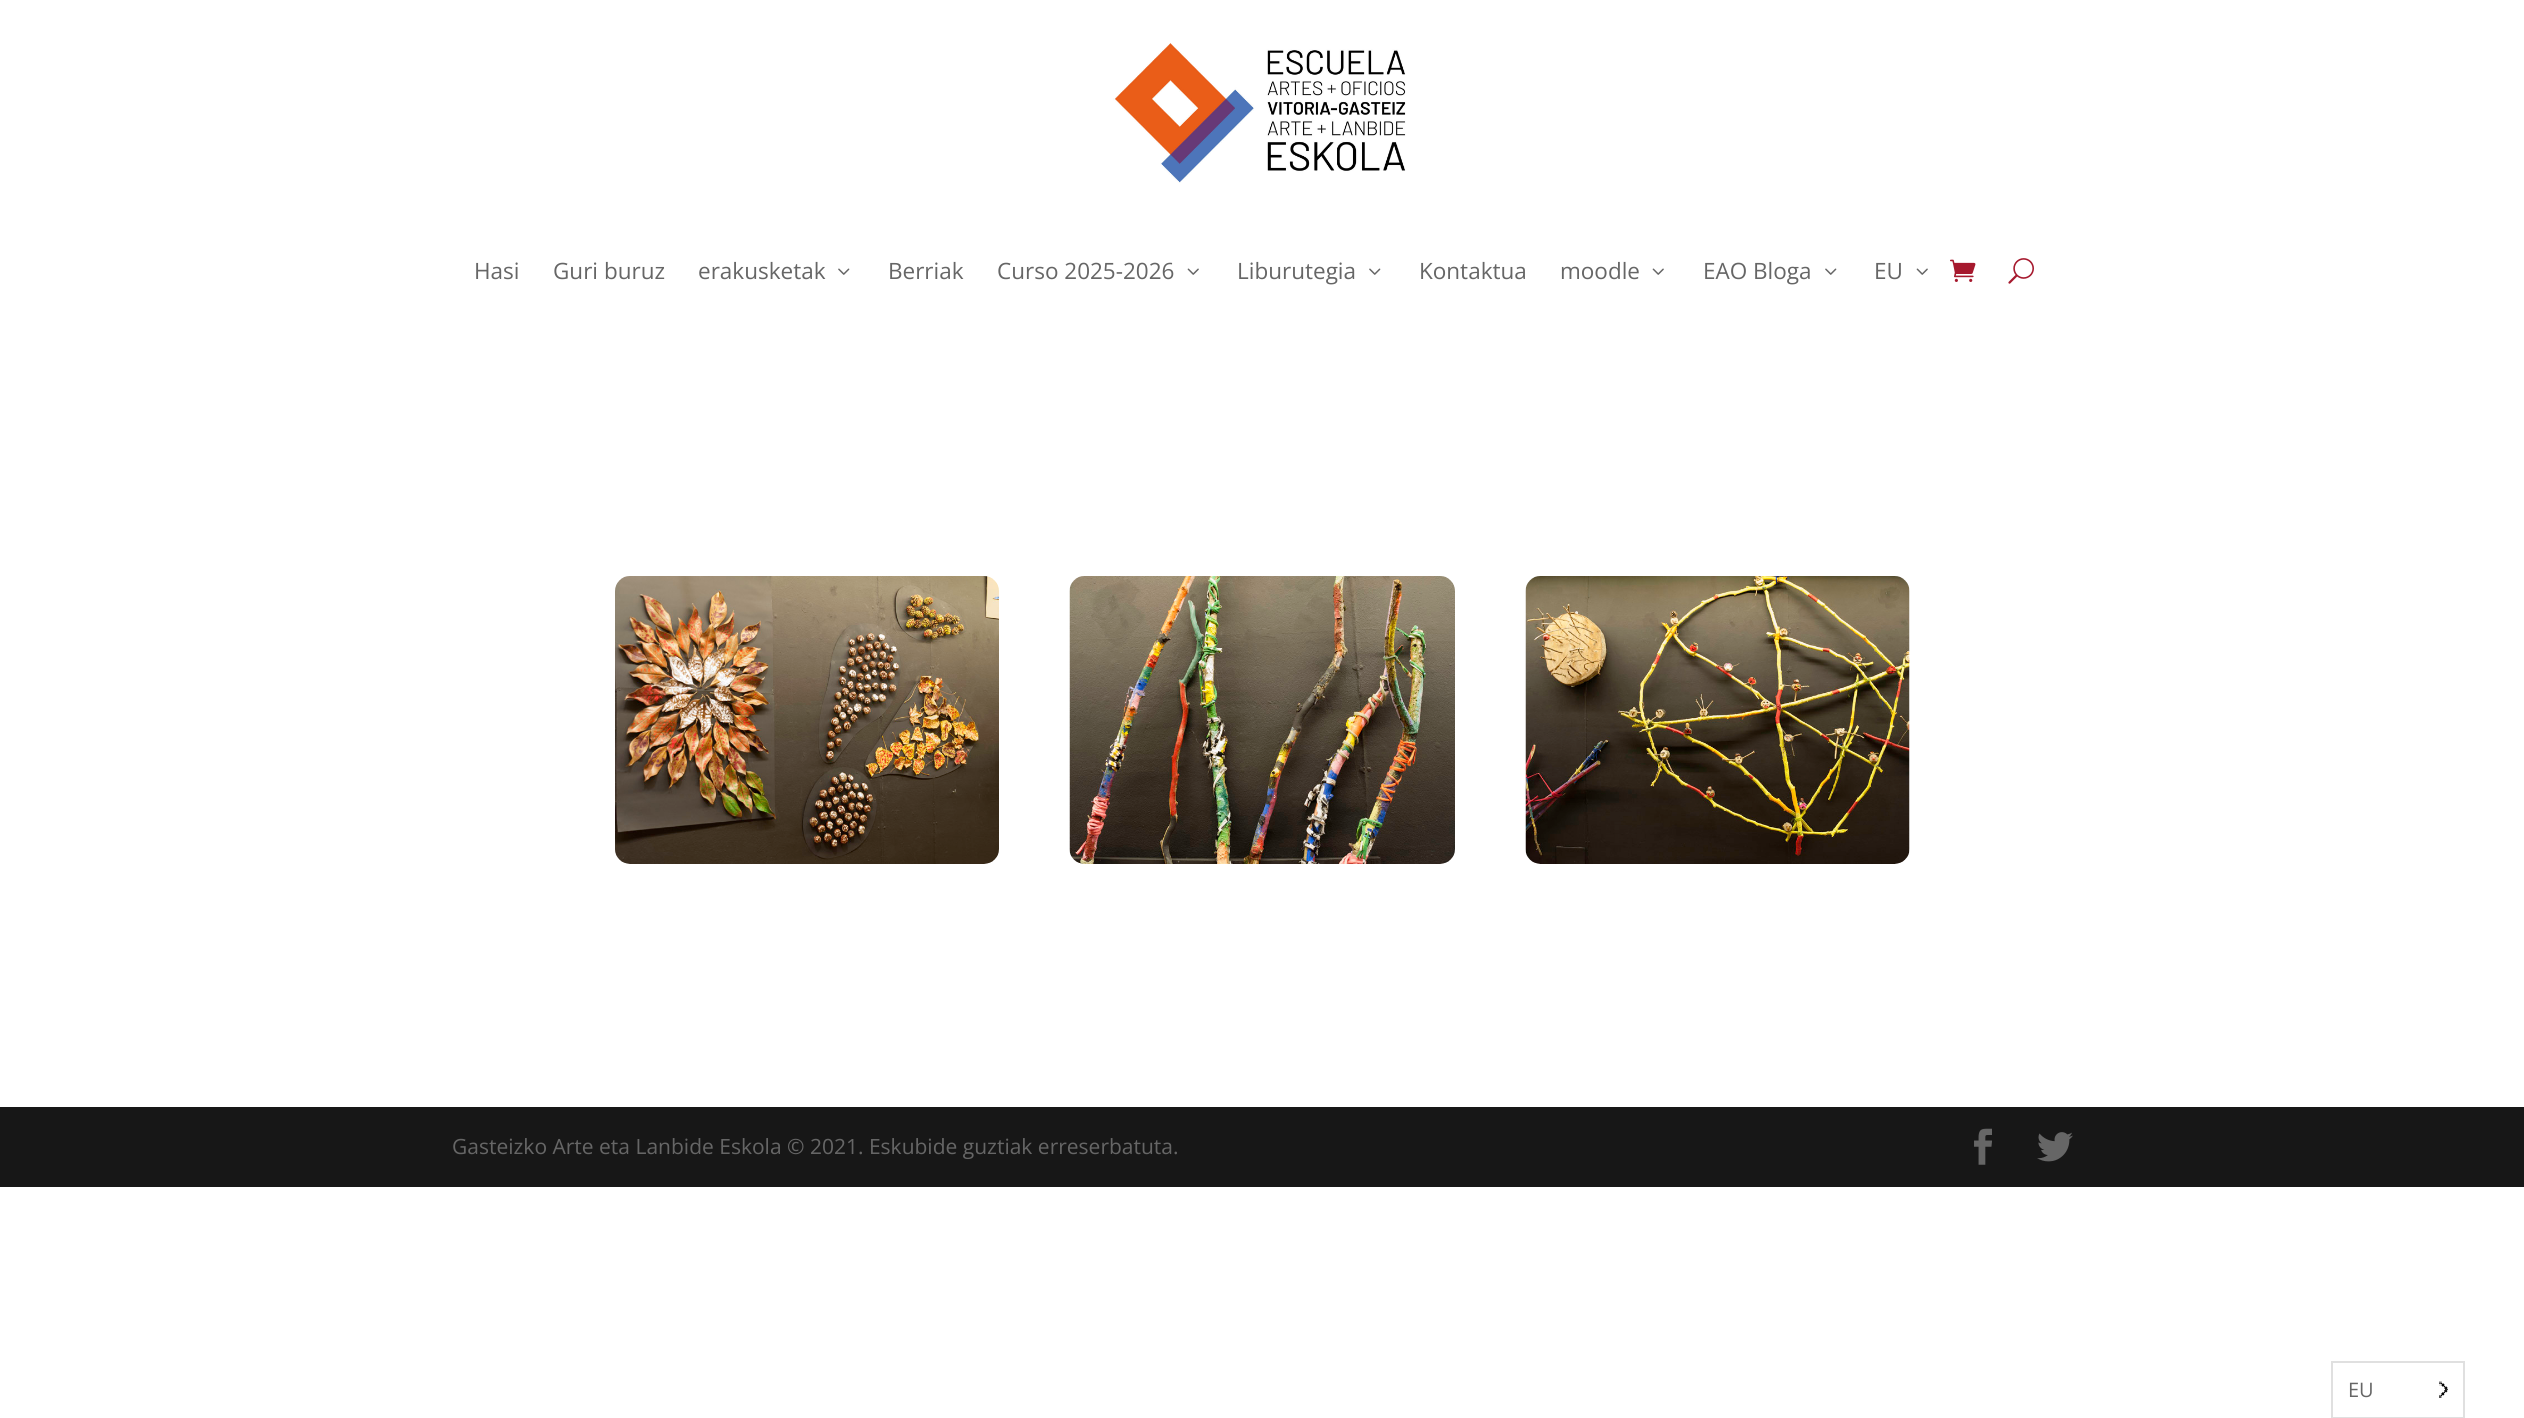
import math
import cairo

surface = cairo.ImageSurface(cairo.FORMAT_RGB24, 2524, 1418)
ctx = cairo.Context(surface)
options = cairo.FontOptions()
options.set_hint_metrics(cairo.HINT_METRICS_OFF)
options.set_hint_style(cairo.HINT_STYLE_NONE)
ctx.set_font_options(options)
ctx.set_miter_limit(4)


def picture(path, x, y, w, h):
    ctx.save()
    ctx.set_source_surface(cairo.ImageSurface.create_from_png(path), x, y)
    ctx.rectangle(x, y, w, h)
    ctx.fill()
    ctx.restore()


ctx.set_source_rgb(1, 1, 1)
ctx.paint()
picture("img1.png", 1113, 43, 293, 140)
ctx.select_font_face("Open Sans")
ctx.set_font_size(22.5)
ctx.set_source_rgb(0.4, 0.4, 0.4)
ctx.move_to(474, 279)
ctx.show_text("Hasi")
ctx.move_to(553, 279)
ctx.show_text("Guri buruz")
ctx.move_to(698, 279)
ctx.show_text("erakusketak")
picture("img2.png", 838, 268, 12, 7)
ctx.move_to(888, 279)
ctx.show_text("Berriak")
ctx.move_to(997, 279)
ctx.show_text("Curso 2025-2026")
picture("img3.png", 1187, 268, 12, 7)
ctx.move_to(1237, 279)
ctx.show_text("Liburutegia")
picture("img2.png", 1369, 268, 12, 7)
ctx.move_to(1419, 279)
ctx.show_text("Kontaktua")
ctx.move_to(1560, 279)
ctx.show_text("moodle")
picture("img3.png", 1652, 268, 12, 7)
ctx.move_to(1703, 279)
ctx.show_text("EAO Bloga")
picture("img2.png", 1825, 268, 12, 7)
ctx.move_to(1874, 279)
ctx.show_text("EU")
picture("img3.png", 1916, 268, 12, 7)
picture("img4.png", 1950, 259, 26, 23)
picture("img5.png", 2008, 258, 26, 26)
picture("img6.png", 615, 576, 384, 288)
picture("img7.png", 1069, 576, 386, 288)
picture("img8.png", 1525, 576, 385, 288)
ctx.set_source_rgb(0.09, 0.09, 0.09)
ctx.rectangle(0, 1107, 2524, 80)
ctx.fill()
ctx.set_font_size(21)
ctx.set_source_rgb(0.4, 0.4, 0.4)
ctx.move_to(452, 1154)
ctx.show_text("Gasteizko Arte eta Lanbide Eskola © 2021. Eskubide guztiak erreserbatuta.")
picture("img9.png", 1974, 1128, 18, 37)
picture("img10.png", 2037, 1132, 36, 30)
ctx.rectangle(2332, 1362, 132, 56)
ctx.set_source_rgb(0.878, 0.878, 0.878)
ctx.stroke()
ctx.set_font_size(20)
ctx.set_source_rgb(0.4, 0.4, 0.4)
ctx.move_to(2348, 1397)
ctx.show_text("EU")
picture("img11.png", 2439, 1381, 9, 17)
surface.write_to_png("page.png")
